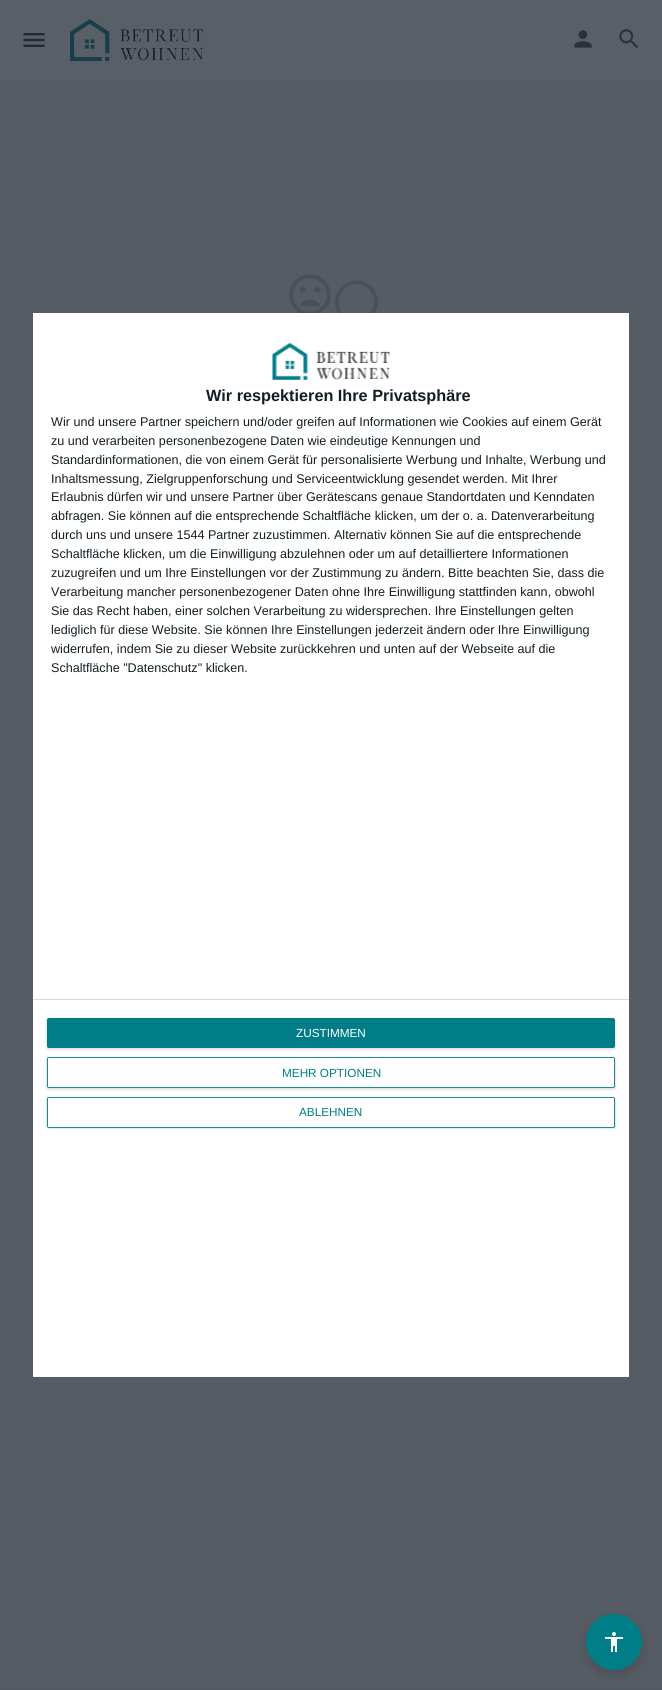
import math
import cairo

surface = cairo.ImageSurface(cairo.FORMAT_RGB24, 662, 1690)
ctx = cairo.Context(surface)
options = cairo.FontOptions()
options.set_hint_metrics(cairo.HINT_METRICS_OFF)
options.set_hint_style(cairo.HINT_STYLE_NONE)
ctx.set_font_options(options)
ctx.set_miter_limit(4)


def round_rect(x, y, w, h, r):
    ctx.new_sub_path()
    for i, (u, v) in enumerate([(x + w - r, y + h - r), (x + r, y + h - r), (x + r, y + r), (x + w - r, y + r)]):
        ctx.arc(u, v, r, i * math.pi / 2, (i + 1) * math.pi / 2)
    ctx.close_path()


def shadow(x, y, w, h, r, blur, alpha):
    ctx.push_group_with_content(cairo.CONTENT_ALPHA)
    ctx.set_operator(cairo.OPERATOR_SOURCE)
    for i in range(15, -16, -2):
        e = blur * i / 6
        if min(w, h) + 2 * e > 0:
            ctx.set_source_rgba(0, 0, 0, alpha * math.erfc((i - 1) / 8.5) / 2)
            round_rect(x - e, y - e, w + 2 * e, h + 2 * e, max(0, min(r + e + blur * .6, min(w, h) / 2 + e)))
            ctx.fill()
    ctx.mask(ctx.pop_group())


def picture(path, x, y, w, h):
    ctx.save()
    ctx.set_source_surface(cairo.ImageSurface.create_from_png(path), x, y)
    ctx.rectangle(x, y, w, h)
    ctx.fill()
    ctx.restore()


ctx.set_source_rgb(0.337, 0.361, 0.392)
ctx.paint()
ctx.set_source_rgb(0.325, 0.349, 0.384)
ctx.rectangle(0, 1689, 662, 1)
ctx.fill()
ctx.set_source_rgb(0.349, 0.373, 0.404)
ctx.rectangle(0, 0, 662, 80)
ctx.fill()
picture("img1.png", 23, 33, 22, 14)
picture("img2.png", 70, 19, 133, 42)
picture("img3.png", 574, 30, 18, 18)
picture("img4.png", 619, 29, 20, 20)
picture("img5.png", 289, 274, 42, 39)
ctx.set_source_rgb(0.29, 0.314, 0.345)
ctx.new_path()
ctx.move_to(363, 286)
ctx.curve_to(342, 276, 328, 309, 349, 319)
ctx.curve_to(371, 328, 385, 295, 363, 286)
ctx.close_path()
ctx.move_to(375, 291)
ctx.curve_to(389, 316, 352, 337, 338, 313)
ctx.curve_to(324, 289, 361, 267, 375, 291)
ctx.close_path()
ctx.fill()
ctx.set_source_rgb(1, 1, 1)
ctx.rectangle(33, 313, 596, 1064)
ctx.fill()
picture("img6.png", 272, 342, 118, 38)
ctx.select_font_face("Liberation Sans", cairo.FONT_SLANT_NORMAL, cairo.FONT_WEIGHT_BOLD)
ctx.set_font_size(16.25)
ctx.set_source_rgb(0.078, 0.118, 0.137)
ctx.move_to(206, 401)
ctx.show_text("Wir respektieren Ihre Privatsphäre")
ctx.select_font_face("Liberation Sans")
ctx.set_font_size(12.6)
ctx.move_to(51, 426)
ctx.show_text("Wir und unsere Partner speichern und/oder greifen auf Informationen wie Cookies auf einem Gerät")
ctx.move_to(51, 445)
ctx.show_text("zu und verarbeiten personenbezogene Daten wie eindeutige Kennungen und")
ctx.move_to(51, 464)
ctx.show_text("Standardinformationen, die von einem Gerät für personalisierte Werbung und Inhalte, Werbung und")
ctx.move_to(51, 483)
ctx.show_text("Inhaltsmessung, Zielgruppenforschung und Serviceentwicklung gesendet werden. Mit Ihrer")
ctx.move_to(51, 501)
ctx.show_text("Erlaubnis dürfen wir und unsere Partner über Gerätescans genaue Standortdaten und Kenndaten")
ctx.move_to(51, 520)
ctx.show_text("abfragen. Sie können auf die entsprechende Schaltfläche klicken, um der o. a. Datenverarbeitung")
ctx.move_to(51, 539)
ctx.show_text("durch uns und unsere 1544 Partner zuzustimmen. Alternativ können Sie auf die entsprechende")
ctx.move_to(51, 558)
ctx.show_text("Schaltfläche klicken, um die Einwilligung abzulehnen oder um auf detailliertere Informationen")
ctx.move_to(51, 577)
ctx.show_text("zuzugreifen und um Ihre Einstellungen vor der Zustimmung zu ändern. Bitte beachten Sie, dass die")
ctx.move_to(51, 596)
ctx.show_text("Verarbeitung mancher personenbezogener Daten ohne Ihre Einwilligung stattfinden kann, obwohl")
ctx.move_to(51, 615)
ctx.show_text("Sie das Recht haben, einer solchen Verarbeitung zu widersprechen. Ihre Einstellungen gelten")
ctx.move_to(51, 634)
ctx.show_text("lediglich für diese Website. Sie können Ihre Einstellungen jederzeit ändern oder Ihre Einwilligung")
ctx.move_to(51, 653)
ctx.show_text("widerrufen, indem Sie zu dieser Website zurückkehren und unten auf der Webseite auf die")
ctx.move_to(51, 672)
ctx.show_text("Schaltfläche \"Datenschutz\" klicken.")
ctx.set_source_rgb(0.847, 0.847, 0.847)
ctx.rectangle(33, 999, 596, 1)
ctx.fill()
ctx.set_source_rgb(0, 0, 0)
shadow(46, 1018, 570, 32, 2.5, 0.5, 0.1)
ctx.set_source_rgb(0, 0.49, 0.529)
round_rect(47, 1018, 568, 30, 2)
ctx.fill()
ctx.set_font_size(11.75)
ctx.set_source_rgb(1, 1, 1)
ctx.move_to(296, 1037)
ctx.show_text("ZUSTIMMEN")
ctx.set_source_rgb(0, 0, 0)
shadow(46, 1057, 570, 33, 2.5, 0.5, 0.1)
ctx.set_source_rgb(1, 1, 1)
round_rect(47.45, 1057.45, 567.1, 30.1, 1.55)
ctx.fill_preserve()
ctx.set_source_rgb(0, 0.49, 0.529)
ctx.set_line_width(0.9)
ctx.stroke()
ctx.move_to(282, 1077)
ctx.show_text("MEHR OPTIONEN")
ctx.set_source_rgb(0, 0, 0)
shadow(46, 1097, 570, 32, 2.5, 0.5, 0.1)
ctx.set_source_rgb(1, 1, 1)
round_rect(47.45, 1097.45, 567.1, 30.1, 1.55)
ctx.fill_preserve()
ctx.set_source_rgb(0, 0.49, 0.529)
ctx.stroke()
ctx.move_to(299, 1116)
ctx.show_text("ABLEHNEN")
ctx.set_source_rgb(0, 0, 0)
shadow(586, 1618, 56, 56, 28, 6, 0.15)
ctx.set_source_rgb(0, 0.49, 0.529)
ctx.arc(614, 1642, 28, 0, 2 * math.pi)
ctx.fill()
picture("img7.png", 605, 1632, 18, 20)
surface.write_to_png("page.png")
